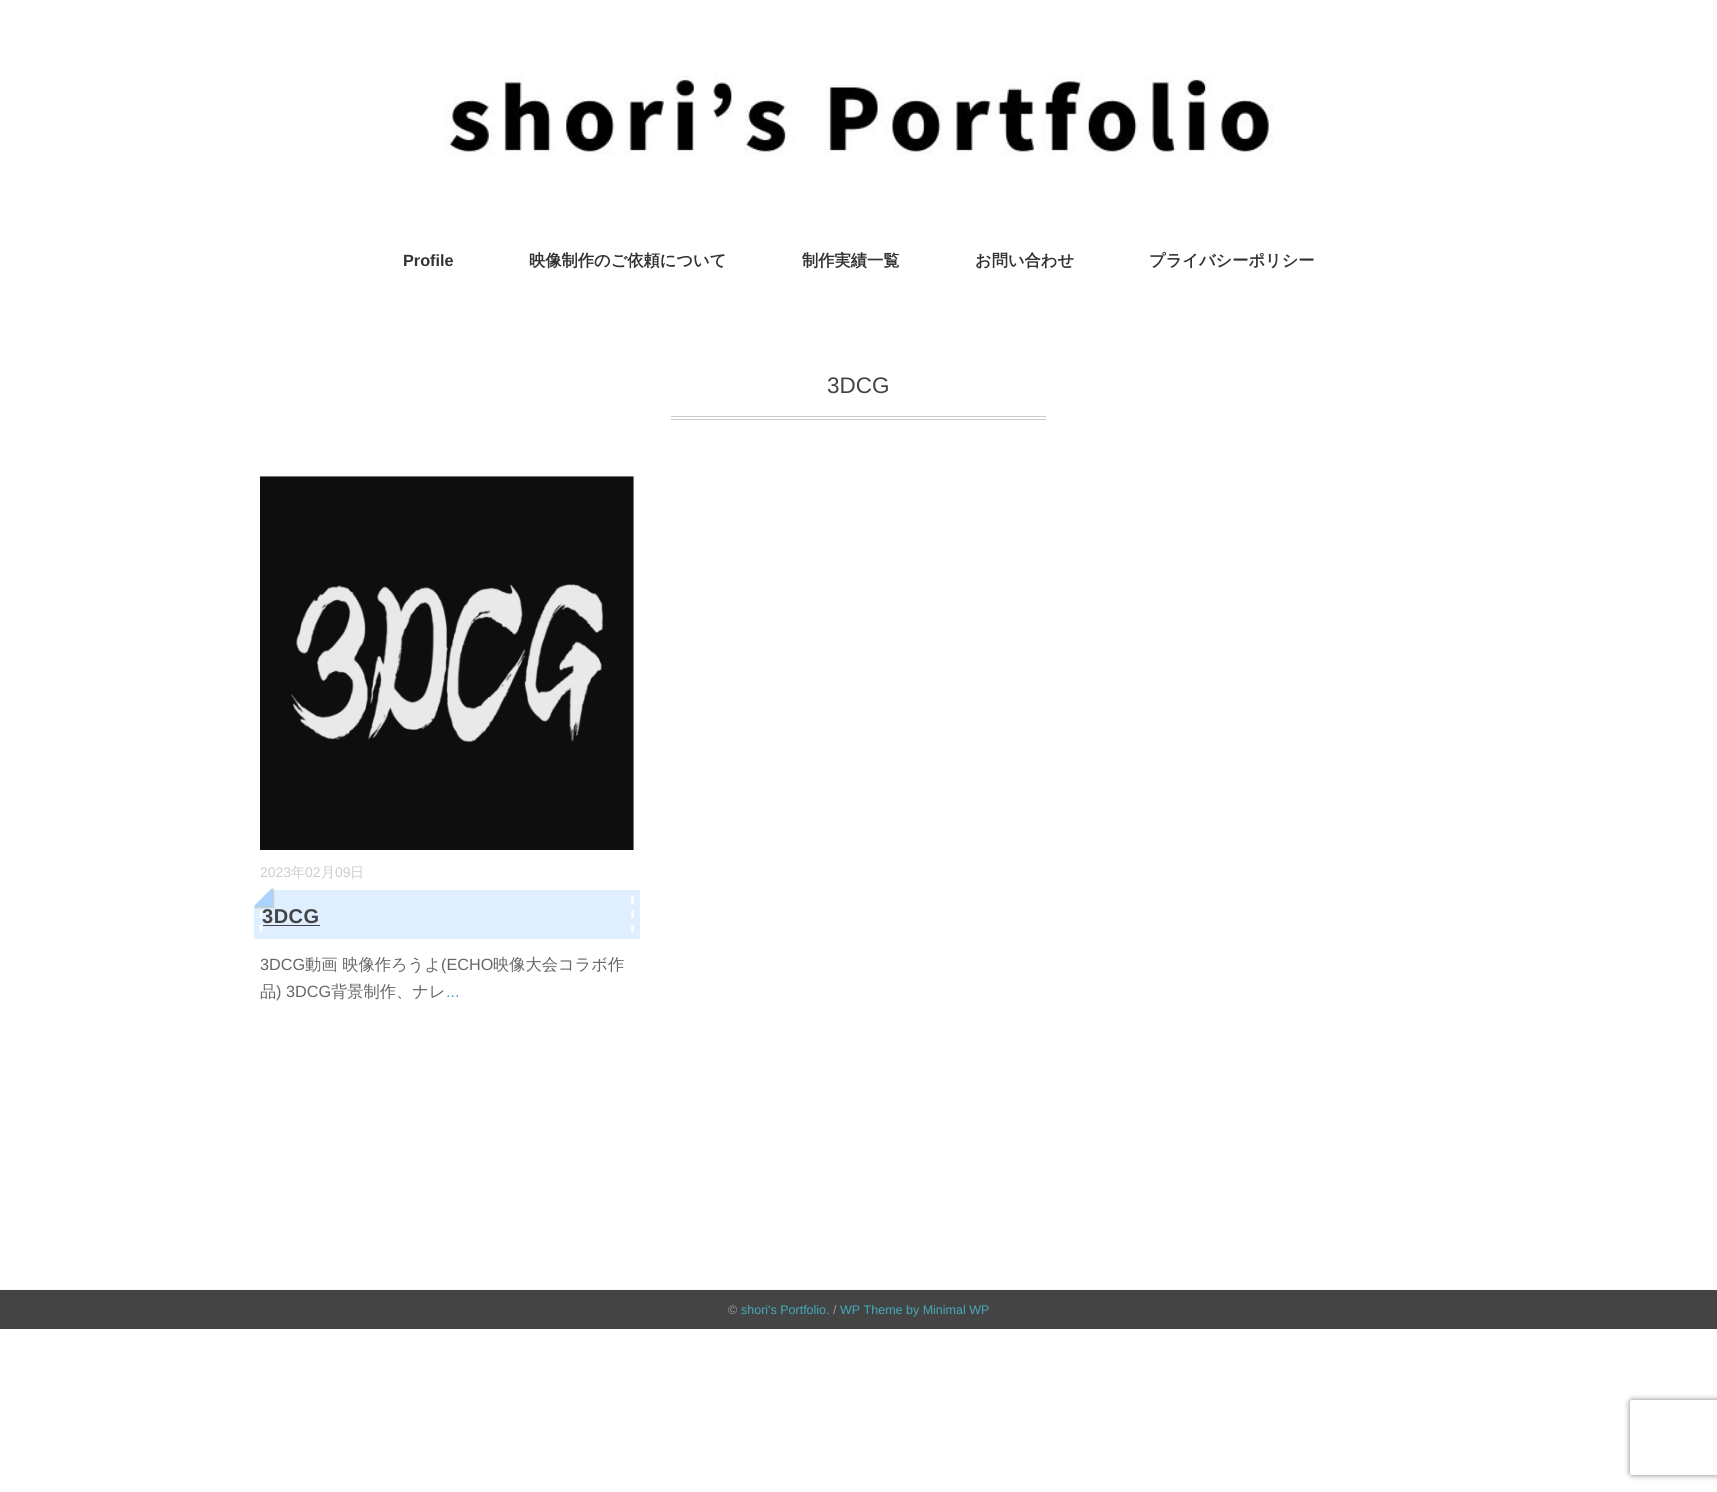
import math
import cairo

surface = cairo.ImageSurface(cairo.FORMAT_RGB24, 1717, 1492)
ctx = cairo.Context(surface)
options = cairo.FontOptions()
options.set_hint_metrics(cairo.HINT_METRICS_OFF)
options.set_hint_style(cairo.HINT_STYLE_NONE)
ctx.set_font_options(options)
ctx.set_miter_limit(4)


def spaced_text(x, y, s, letter, word):
    ctx.move_to(x, y)
    for ch in s:
        ctx.show_text(ch)
        ctx.rel_move_to(letter + word * (ch == ' '), 0)


def round_rect(x, y, w, h, r):
    ctx.new_sub_path()
    for i, (u, v) in enumerate([(x + w - r, y + h - r), (x + r, y + h - r), (x + r, y + r), (x + w - r, y + r)]):
        ctx.arc(u, v, r, i * math.pi / 2, (i + 1) * math.pi / 2)
    ctx.close_path()


def shadow(x, y, w, h, r, blur, alpha):
    ctx.push_group_with_content(cairo.CONTENT_ALPHA)
    ctx.set_operator(cairo.OPERATOR_SOURCE)
    for i in range(15, -16, -2):
        e = blur * i / 6
        if min(w, h) + 2 * e > 0:
            ctx.set_source_rgba(0, 0, 0, alpha * math.erfc((i - 1) / 8.5) / 2)
            round_rect(x - e, y - e, w + 2 * e, h + 2 * e, max(0, min(r + e + blur * .6, min(w, h) / 2 + e)))
            ctx.fill()
    ctx.mask(ctx.pop_group())


def picture(path, x, y, w, h):
    ctx.save()
    ctx.set_source_surface(cairo.ImageSurface.create_from_png(path), x, y)
    ctx.rectangle(x, y, w, h)
    ctx.fill()
    ctx.restore()


ctx.set_source_rgb(1, 1, 1)
ctx.paint()
picture("img1.png", 444, 75, 830, 80)
ctx.select_font_face("Liberation Sans", cairo.FONT_SLANT_NORMAL, cairo.FONT_WEIGHT_BOLD)
ctx.set_font_size(16.25)
ctx.set_source_rgb(0.2, 0.2, 0.2)
ctx.move_to(403, 266)
ctx.show_text("Profile")
ctx.select_font_face("WenQuanYi Zen Hei", cairo.FONT_SLANT_NORMAL, cairo.FONT_WEIGHT_BOLD)
ctx.move_to(529, 266)
ctx.show_text("映像制作のご依頼について")
ctx.move_to(802, 266)
ctx.show_text("制作実績一覧")
ctx.move_to(975, 266)
ctx.show_text("お問い合わせ")
ctx.move_to(1149, 266)
ctx.show_text("プライバシーポリシー")
ctx.set_source_rgb(0.8, 0.8, 0.8)
ctx.rectangle(671, 416, 375, 1)
ctx.fill()
ctx.rectangle(671, 419, 375, 1)
ctx.fill()
ctx.select_font_face("Liberation Sans")
ctx.set_font_size(22.5)
ctx.set_source_rgb(0.267, 0.267, 0.267)
ctx.move_to(827, 393)
ctx.show_text("3DCG")
picture("img2.png", 260, 476, 374, 374)
ctx.set_font_size(14)
ctx.set_source_rgb(0.8, 0.8, 0.8)
ctx.move_to(260, 877)
ctx.show_text("2023")
ctx.select_font_face("WenQuanYi Zen Hei Medium")
ctx.move_to(291, 877)
ctx.show_text("年")
ctx.select_font_face("Liberation Sans")
ctx.move_to(305, 877)
ctx.show_text("02")
ctx.select_font_face("WenQuanYi Zen Hei Medium")
ctx.move_to(321, 877)
ctx.show_text("月")
ctx.select_font_face("Liberation Sans")
ctx.move_to(335, 877)
ctx.show_text("09")
ctx.select_font_face("WenQuanYi Zen Hei Medium")
ctx.move_to(350, 877)
ctx.show_text("日")
ctx.rectangle(257, 893, 380, 43)
ctx.set_source_rgb(0.875, 0.937, 1)
ctx.set_line_width(6)
ctx.stroke()
ctx.rectangle(260, 896, 374, 37)
ctx.fill()
ctx.new_path()
ctx.move_to(632.5, 896)
ctx.line_to(632.5, 904)
ctx.move_to(632.5, 910.5)
ctx.line_to(632.5, 918)
ctx.move_to(632.5, 925)
ctx.line_to(632.5, 932.5)
ctx.set_source_rgb(1, 1, 1)
ctx.set_line_width(2.5)
ctx.stroke()
ctx.new_path()
ctx.move_to(261, 896)
ctx.line_to(261, 904)
ctx.move_to(261, 910.5)
ctx.line_to(261, 918)
ctx.move_to(261, 925)
ctx.line_to(261, 932.5)
ctx.stroke()
ctx.set_source_rgb(0, 0, 0)
shadow(255, 889, 19, 19, 0, 0.5, 0.15)
ctx.set_source_rgb(0.659, 0.831, 1)
ctx.new_path()
ctx.move_to(272.5, 906)
ctx.line_to(254, 906)
ctx.line_to(272.5, 887.5)
ctx.close_path()
ctx.fill()
ctx.set_source_rgb(1, 1, 1)
ctx.new_path()
ctx.move_to(254, 906)
ctx.line_to(254, 887.5)
ctx.line_to(272.5, 887.5)
ctx.close_path()
ctx.fill()
ctx.select_font_face("Liberation Sans", cairo.FONT_SLANT_NORMAL, cairo.FONT_WEIGHT_BOLD)
ctx.set_font_size(20)
ctx.set_source_rgb(0.267, 0.267, 0.267)
spaced_text(262, 923, "3DCG", 0.5, 0)
ctx.set_source_rgb(0.271, 0.271, 0.271)
ctx.rectangle(263, 925, 57, 1)
ctx.fill()
ctx.select_font_face("Liberation Sans")
ctx.set_font_size(16.25)
ctx.set_source_rgb(0.4, 0.4, 0.4)
ctx.move_to(260, 970)
ctx.show_text("3DCG")
ctx.select_font_face("WenQuanYi Zen Hei Medium")
ctx.move_to(305, 970)
ctx.show_text("動画 映像作ろうよ")
ctx.select_font_face("Liberation Sans")
ctx.move_to(441, 970)
ctx.show_text("(ECHO")
ctx.select_font_face("WenQuanYi Zen Hei Medium")
ctx.move_to(493, 970)
ctx.show_text("映像大会コラボ作")
ctx.move_to(260, 997)
ctx.show_text("品")
ctx.select_font_face("Liberation Sans")
ctx.move_to(276, 997)
ctx.show_text(") 3DCG")
ctx.select_font_face("WenQuanYi Zen Hei Medium")
ctx.move_to(331, 997)
ctx.show_text("背景制作、ナレ")
ctx.select_font_face("Liberation Sans")
ctx.set_source_rgb(0.271, 0.667, 0.722)
ctx.move_to(446, 997)
ctx.show_text("...")
ctx.set_source_rgb(0.961, 0.961, 0.961)
ctx.rectangle(0, 1289, 1717, 1)
ctx.fill()
ctx.set_source_rgb(0.267, 0.267, 0.267)
ctx.rectangle(0, 1290, 1717, 39)
ctx.fill()
ctx.set_font_size(12.5)
ctx.set_source_rgb(0.6, 0.6, 0.6)
ctx.move_to(728, 1314)
ctx.show_text("©")
ctx.set_source_rgb(0.271, 0.667, 0.722)
ctx.move_to(741, 1314)
ctx.show_text("shori's Portfolio")
ctx.set_source_rgb(0.6, 0.6, 0.6)
ctx.move_to(826, 1314)
ctx.show_text(". /")
ctx.set_source_rgb(0.271, 0.667, 0.722)
ctx.move_to(840, 1314)
ctx.show_text("WP Theme by Minimal WP")
ctx.save()
ctx.set_fill_rule(cairo.FILL_RULE_EVEN_ODD)
ctx.new_path()
ctx.move_to(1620, 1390)
ctx.line_to(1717, 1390)
ctx.line_to(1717, 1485)
ctx.line_to(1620, 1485)
ctx.close_path()
ctx.move_to(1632.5, 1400)
ctx.line_to(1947.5, 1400)
ctx.curve_to(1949, 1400, 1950, 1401, 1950, 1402.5)
ctx.line_to(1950, 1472.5)
ctx.curve_to(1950, 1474, 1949, 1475, 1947.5, 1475)
ctx.line_to(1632.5, 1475)
ctx.curve_to(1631, 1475, 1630, 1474, 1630, 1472.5)
ctx.line_to(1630, 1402.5)
ctx.curve_to(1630, 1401, 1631, 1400, 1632.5, 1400)
ctx.close_path()
ctx.clip()
ctx.set_source_rgb(0.502, 0.502, 0.502)
shadow(1630, 1400, 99, 75, 2.5, 3, 1)
ctx.restore()
surface.write_to_png("page.png")
